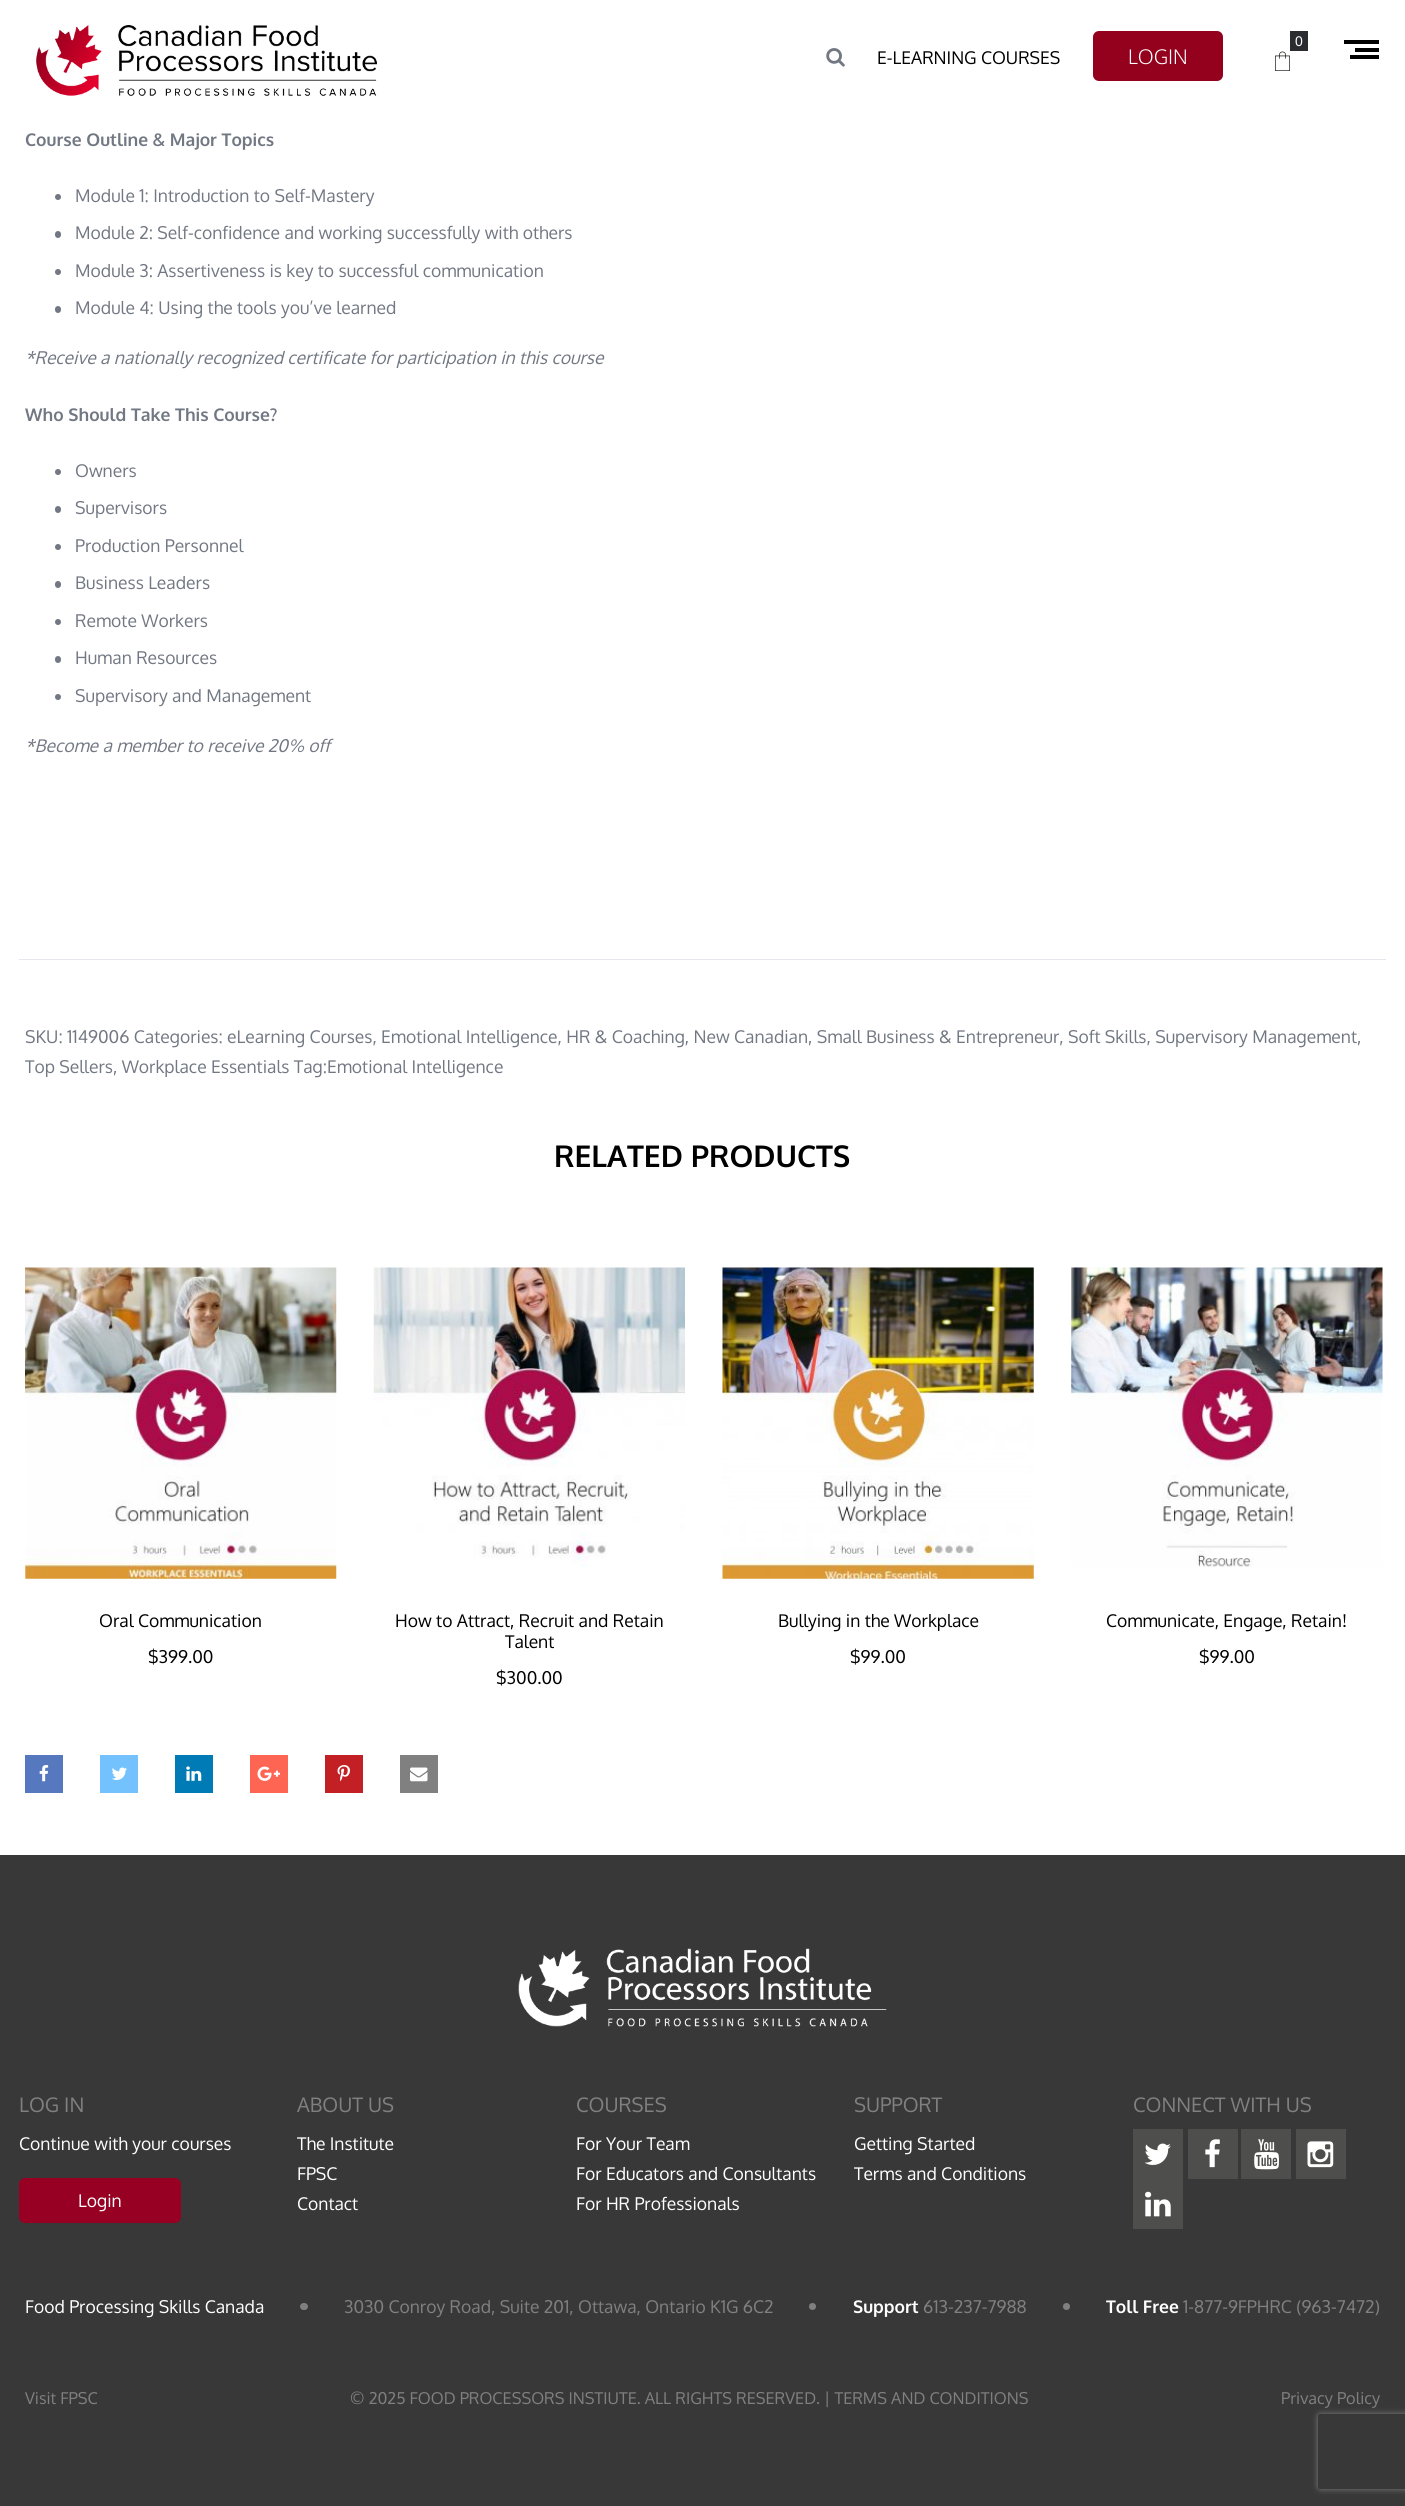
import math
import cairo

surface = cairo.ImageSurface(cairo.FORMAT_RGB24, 1405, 2506)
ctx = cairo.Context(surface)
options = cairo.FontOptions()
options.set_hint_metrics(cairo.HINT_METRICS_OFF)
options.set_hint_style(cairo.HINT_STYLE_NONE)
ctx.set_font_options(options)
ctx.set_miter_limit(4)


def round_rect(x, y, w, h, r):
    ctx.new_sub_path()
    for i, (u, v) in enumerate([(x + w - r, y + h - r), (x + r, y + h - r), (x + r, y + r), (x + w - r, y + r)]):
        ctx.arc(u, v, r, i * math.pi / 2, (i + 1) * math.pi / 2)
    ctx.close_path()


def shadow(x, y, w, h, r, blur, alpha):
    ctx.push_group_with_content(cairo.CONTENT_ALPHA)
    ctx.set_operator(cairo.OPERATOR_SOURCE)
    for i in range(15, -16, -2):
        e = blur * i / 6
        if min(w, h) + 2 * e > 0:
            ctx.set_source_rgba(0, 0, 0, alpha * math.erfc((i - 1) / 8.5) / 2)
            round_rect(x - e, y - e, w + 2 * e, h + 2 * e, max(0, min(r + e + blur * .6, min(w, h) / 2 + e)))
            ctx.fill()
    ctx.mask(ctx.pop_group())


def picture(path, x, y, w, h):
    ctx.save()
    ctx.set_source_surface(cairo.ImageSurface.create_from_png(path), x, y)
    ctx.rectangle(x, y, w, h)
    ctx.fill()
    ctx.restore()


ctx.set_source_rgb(1, 1, 1)
ctx.paint()
picture("img1.png", 36, 25, 341, 71)
picture("img2.png", 826, 48, 19, 19)
ctx.select_font_face("Oxygen")
ctx.set_font_size(17.5)
ctx.set_source_rgb(0, 0, 0)
ctx.move_to(877, 64)
ctx.show_text("E-LEARNING COURSES")
ctx.set_source_rgb(0.576, 0.004, 0.114)
round_rect(1093, 31, 130, 50, 6)
ctx.fill()
ctx.select_font_face("Oxygen Light")
ctx.set_font_size(20)
ctx.set_source_rgb(1, 1, 1)
ctx.move_to(1128, 64)
ctx.show_text("LOGIN")
ctx.set_source_rgb(0.169, 0.173, 0.188)
ctx.rectangle(1290, 31, 18, 20)
ctx.fill()
ctx.select_font_face("Liberation Sans")
ctx.set_font_size(14)
ctx.set_source_rgb(1, 1, 1)
ctx.move_to(1295, 46)
ctx.show_text("0")
picture("img3.png", 1275, 51, 15, 20)
ctx.set_source_rgb(0, 0, 0)
ctx.rectangle(1344, 40, 35, 4)
ctx.fill()
ctx.rectangle(1355, 48, 24, 4)
ctx.fill()
ctx.rectangle(1350, 55, 29, 4)
ctx.fill()
ctx.select_font_face("Oxygen", cairo.FONT_SLANT_NORMAL, cairo.FONT_WEIGHT_BOLD)
ctx.set_font_size(17.5)
ctx.set_source_rgb(0.447, 0.471, 0.514)
ctx.move_to(25, 146)
ctx.show_text("Course Outline & Major Topics")
ctx.new_path()
ctx.arc(58, 197, 3, 0, 2 * math.pi)
ctx.fill()
ctx.select_font_face("Oxygen")
ctx.move_to(75, 202)
ctx.show_text("Module 1: Introduction to Self-Mastery")
round_rect(55, 231, 6, 7, 3)
ctx.fill()
ctx.move_to(75, 239)
ctx.show_text("Module 2: Self-confidence and working successfully with others")
ctx.new_path()
ctx.arc(58, 272, 3, 0, 2 * math.pi)
ctx.fill()
ctx.move_to(75, 277)
ctx.show_text("Module 3: Assertiveness is key to successful communication")
round_rect(55, 306, 6, 7, 3)
ctx.fill()
ctx.move_to(75, 314)
ctx.show_text("Module 4: Using the tools you’ve learned")
ctx.select_font_face("Oxygen", cairo.FONT_SLANT_ITALIC)
ctx.move_to(25, 364)
ctx.show_text("*Receive a nationally recognized certificate for participation in this course")
ctx.select_font_face("Oxygen", cairo.FONT_SLANT_NORMAL, cairo.FONT_WEIGHT_BOLD)
ctx.move_to(25, 421)
ctx.show_text("Who Should Take This Course?")
ctx.new_path()
ctx.arc(58, 472, 3, 0, 2 * math.pi)
ctx.fill()
ctx.select_font_face("Oxygen")
ctx.move_to(75, 477)
ctx.show_text("Owners")
round_rect(55, 506, 6, 7, 3)
ctx.fill()
ctx.move_to(75, 514)
ctx.show_text("Supervisors")
ctx.new_path()
ctx.arc(58, 547, 3, 0, 2 * math.pi)
ctx.fill()
ctx.move_to(75, 552)
ctx.show_text("Production Personnel")
round_rect(55, 581, 6, 7, 3)
ctx.fill()
ctx.move_to(75, 589)
ctx.show_text("Business Leaders")
ctx.new_path()
ctx.arc(58, 622, 3, 0, 2 * math.pi)
ctx.fill()
ctx.move_to(75, 627)
ctx.show_text("Remote Workers")
round_rect(55, 656, 6, 7, 3)
ctx.fill()
ctx.move_to(75, 664)
ctx.show_text("Human Resources")
ctx.new_path()
ctx.arc(58, 697, 3, 0, 2 * math.pi)
ctx.fill()
ctx.move_to(75, 702)
ctx.show_text("Supervisory and Management")
ctx.select_font_face("Oxygen", cairo.FONT_SLANT_ITALIC)
ctx.move_to(25, 752)
ctx.show_text("*Become a member to receive 20% off")
ctx.set_source_rgb(0.898, 0.906, 0.922)
ctx.rectangle(19, 959, 1367, 1)
ctx.fill()
ctx.select_font_face("Oxygen")
ctx.set_source_rgb(0.447, 0.471, 0.514)
ctx.move_to(25, 1043)
ctx.show_text("SKU: 1149006 Categories: eLearning Courses, Emotional Intelligence, HR & Coaching, New Canadian, Small Business & Entrepreneur, Soft Skills, Supervisory Management,")
ctx.move_to(25, 1073)
ctx.show_text("Top Sellers, Workplace Essentials Tag:Emotional Intelligence")
ctx.select_font_face("Oxygen", cairo.FONT_SLANT_NORMAL, cairo.FONT_WEIGHT_BOLD)
ctx.set_font_size(30)
ctx.set_source_rgb(0, 0, 0)
ctx.move_to(554, 1167)
ctx.show_text("RELATED PRODUCTS")
picture("img4.png", 25, 1267, 312, 312)
ctx.select_font_face("Oxygen")
ctx.set_font_size(17.5)
ctx.move_to(99, 1627)
ctx.show_text("Oral Communication")
ctx.move_to(148, 1663)
ctx.show_text("$399.00")
picture("img5.png", 373, 1267, 312, 300)
ctx.move_to(395, 1627)
ctx.show_text("How to Attract, Recruit and Retain")
ctx.move_to(505, 1648)
ctx.show_text("Talent")
ctx.move_to(496, 1684)
ctx.show_text("$300.00")
picture("img6.png", 722, 1267, 312, 312)
ctx.move_to(778, 1627)
ctx.show_text("Bullying in the Workplace")
ctx.move_to(850, 1663)
ctx.show_text("$99.00")
picture("img7.png", 1071, 1267, 312, 300)
ctx.move_to(1106, 1627)
ctx.show_text("Communicate, Engage, Retain!")
ctx.move_to(1199, 1663)
ctx.show_text("$99.00")
ctx.set_source_rgb(0.337, 0.471, 0.749)
ctx.rectangle(25, 1755, 38, 38)
ctx.fill()
picture("img8.png", 39, 1765, 10, 17)
ctx.set_source_rgb(0.451, 0.761, 0.992)
ctx.rectangle(100, 1755, 38, 38)
ctx.fill()
picture("img9.png", 112, 1767, 15, 13)
ctx.set_source_rgb(0, 0.482, 0.714)
ctx.rectangle(175, 1755, 38, 38)
ctx.fill()
picture("img10.png", 186, 1766, 16, 15)
ctx.set_source_rgb(0.996, 0.396, 0.325)
ctx.rectangle(250, 1755, 38, 38)
ctx.fill()
picture("img11.png", 257, 1766, 23, 15)
ctx.set_source_rgb(0.765, 0.125, 0.149)
ctx.rectangle(325, 1755, 38, 38)
ctx.fill()
picture("img12.png", 337, 1765, 13, 17)
ctx.set_source_rgb(0.502, 0.502, 0.502)
ctx.rectangle(400, 1755, 38, 38)
ctx.fill()
picture("img13.png", 410, 1767, 18, 15)
ctx.set_source_rgb(0.22, 0.22, 0.22)
ctx.rectangle(0, 1855, 1405, 651)
ctx.fill()
picture("img14.png", 518, 1948, 369, 79)
ctx.set_font_size(20)
ctx.set_source_rgb(0.502, 0.502, 0.502)
ctx.move_to(19, 2112)
ctx.show_text("LOG IN")
ctx.set_font_size(17.5)
ctx.set_source_rgb(1, 1, 1)
ctx.move_to(19, 2150)
ctx.show_text("Continue with your courses")
ctx.set_source_rgb(0.592, 0, 0.133)
round_rect(19, 2178, 162, 45, 6)
ctx.fill()
ctx.set_source_rgb(1, 1, 1)
ctx.move_to(78, 2207)
ctx.show_text("Login")
ctx.set_font_size(20)
ctx.set_source_rgb(0.502, 0.502, 0.502)
ctx.move_to(297, 2112)
ctx.show_text("ABOUT US")
ctx.set_font_size(17.5)
ctx.set_source_rgb(1, 1, 1)
ctx.move_to(297, 2150)
ctx.show_text("The Institute")
ctx.move_to(297, 2180)
ctx.show_text("FPSC")
ctx.move_to(297, 2210)
ctx.show_text("Contact")
ctx.set_font_size(20)
ctx.set_source_rgb(0.502, 0.502, 0.502)
ctx.move_to(576, 2112)
ctx.show_text("COURSES")
ctx.set_font_size(17.5)
ctx.set_source_rgb(1, 1, 1)
ctx.move_to(576, 2150)
ctx.show_text("For Your Team")
ctx.move_to(576, 2180)
ctx.show_text("For Educators and Consultants")
ctx.move_to(576, 2210)
ctx.show_text("For HR Professionals")
ctx.set_font_size(20)
ctx.set_source_rgb(0.502, 0.502, 0.502)
ctx.move_to(854, 2112)
ctx.show_text("SUPPORT")
ctx.set_font_size(17.5)
ctx.set_source_rgb(1, 1, 1)
ctx.move_to(854, 2150)
ctx.show_text("Getting Started")
ctx.move_to(854, 2180)
ctx.show_text("Terms and Conditions")
ctx.set_font_size(20)
ctx.set_source_rgb(0.502, 0.502, 0.502)
ctx.move_to(1133, 2112)
ctx.show_text("CONNECT WITH US")
ctx.set_source_rgb(0.306, 0.306, 0.298)
ctx.rectangle(1133, 2129, 50, 100)
ctx.fill()
picture("img15.png", 1144, 2143, 27, 22)
ctx.rectangle(1188, 2129, 50, 50)
ctx.fill()
picture("img16.png", 1205, 2139, 15, 29)
ctx.rectangle(1241, 2129, 50, 50)
ctx.fill()
picture("img17.png", 1254, 2139, 25, 31)
ctx.rectangle(1296, 2129, 50, 50)
ctx.fill()
picture("img18.png", 1307, 2141, 27, 27)
picture("img19.png", 1145, 2191, 26, 26)
ctx.set_font_size(17.5)
ctx.set_source_rgb(1, 1, 1)
ctx.move_to(25, 2313)
ctx.show_text("Food Processing Skills Canada")
ctx.set_source_rgb(0.502, 0.502, 0.502)
round_rect(300, 2303, 8, 7, 3.5)
ctx.fill()
ctx.move_to(344, 2313)
ctx.show_text("3030 Conroy Road, Suite 201, Ottawa, Ontario K1G 6C2")
ctx.new_path()
ctx.arc(812.5, 2306.5, 3.5, 0, 2 * math.pi)
ctx.fill()
ctx.select_font_face("Oxygen", cairo.FONT_SLANT_NORMAL, cairo.FONT_WEIGHT_BOLD)
ctx.set_source_rgb(1, 1, 1)
ctx.move_to(853, 2313)
ctx.show_text("Support")
ctx.select_font_face("Oxygen")
ctx.set_source_rgb(0.502, 0.502, 0.502)
ctx.move_to(923, 2313)
ctx.show_text("613-237-7988")
ctx.new_path()
ctx.arc(1066.5, 2306.5, 3.5, 0, 2 * math.pi)
ctx.fill()
ctx.select_font_face("Oxygen", cairo.FONT_SLANT_NORMAL, cairo.FONT_WEIGHT_BOLD)
ctx.set_source_rgb(1, 1, 1)
ctx.move_to(1106, 2313)
ctx.show_text("Toll Free")
ctx.select_font_face("Oxygen")
ctx.set_source_rgb(0.502, 0.502, 0.502)
ctx.move_to(1183, 2313)
ctx.show_text("1-877-9FPHRC (963-7472)")
ctx.set_font_size(16.25)
ctx.move_to(25, 2404)
ctx.show_text("Visit FPSC")
ctx.move_to(350, 2404)
ctx.show_text("© 2025 FOOD PROCESSORS INSTIUTE. ALL RIGHTS RESERVED. | TERMS AND CONDITIONS")
ctx.move_to(1281, 2404)
ctx.show_text("Privacy Policy")
ctx.save()
ctx.set_fill_rule(cairo.FILL_RULE_EVEN_ODD)
ctx.new_path()
ctx.move_to(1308, 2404)
ctx.line_to(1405, 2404)
ctx.line_to(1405, 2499)
ctx.line_to(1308, 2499)
ctx.close_path()
ctx.move_to(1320.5, 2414)
ctx.line_to(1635.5, 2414)
ctx.curve_to(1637, 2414, 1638, 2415, 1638, 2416.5)
ctx.line_to(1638, 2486.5)
ctx.curve_to(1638, 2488, 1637, 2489, 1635.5, 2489)
ctx.line_to(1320.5, 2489)
ctx.curve_to(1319, 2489, 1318, 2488, 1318, 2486.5)
ctx.line_to(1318, 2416.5)
ctx.curve_to(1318, 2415, 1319, 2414, 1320.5, 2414)
ctx.close_path()
ctx.clip()
ctx.set_source_rgb(0.502, 0.502, 0.502)
shadow(1318, 2414, 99, 75, 2.5, 3, 1)
ctx.restore()
surface.write_to_png("page.png")
